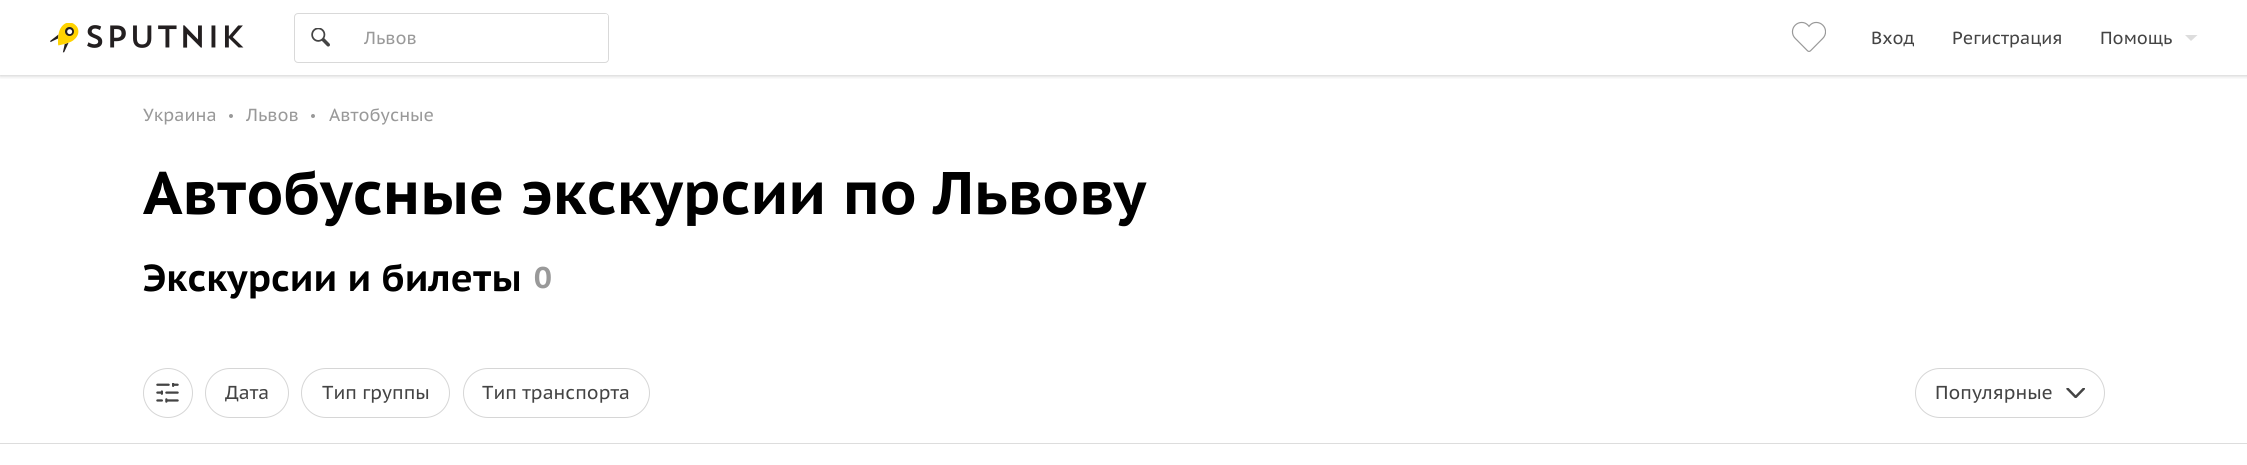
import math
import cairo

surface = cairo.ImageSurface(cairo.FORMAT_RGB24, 2247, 465)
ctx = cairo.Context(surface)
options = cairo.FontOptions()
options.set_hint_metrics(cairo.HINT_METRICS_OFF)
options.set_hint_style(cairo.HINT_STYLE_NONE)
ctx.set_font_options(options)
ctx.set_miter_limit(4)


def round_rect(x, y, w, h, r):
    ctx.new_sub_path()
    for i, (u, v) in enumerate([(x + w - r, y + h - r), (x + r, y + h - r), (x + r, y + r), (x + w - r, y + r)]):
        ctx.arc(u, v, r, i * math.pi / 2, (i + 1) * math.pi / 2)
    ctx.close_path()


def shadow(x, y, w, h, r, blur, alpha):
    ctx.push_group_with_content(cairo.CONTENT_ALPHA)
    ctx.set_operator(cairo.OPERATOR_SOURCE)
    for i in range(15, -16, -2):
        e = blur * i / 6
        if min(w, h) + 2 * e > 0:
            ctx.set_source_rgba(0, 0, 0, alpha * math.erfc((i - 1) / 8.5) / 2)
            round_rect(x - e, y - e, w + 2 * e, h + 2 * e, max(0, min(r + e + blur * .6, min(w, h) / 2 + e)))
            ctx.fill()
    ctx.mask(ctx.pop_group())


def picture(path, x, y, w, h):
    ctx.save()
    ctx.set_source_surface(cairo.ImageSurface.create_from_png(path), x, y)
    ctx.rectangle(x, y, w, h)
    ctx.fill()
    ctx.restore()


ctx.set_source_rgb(1, 1, 1)
ctx.paint()
ctx.save()
ctx.rectangle(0, 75, 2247, 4)
ctx.clip()
ctx.set_source_rgb(0, 0, 0)
shadow(0, 1, 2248, 75, 0, 2, 0.2)
ctx.restore()
picture("img1.png", 50, 23, 194, 30)
picture("img2.png", 311, 28, 19, 19)
round_rect(294.5, 13.5, 314, 49, 3.5)
ctx.set_source_rgb(0.851, 0.851, 0.851)
ctx.set_line_width(1)
ctx.stroke()
ctx.set_source_rgb(1, 1, 1)
ctx.new_path()
ctx.move_to(345, 14)
ctx.line_to(605.5, 14)
ctx.curve_to(607, 14, 608, 15, 608, 16.5)
ctx.line_to(608, 58.5)
ctx.curve_to(608, 60, 607, 61, 605.5, 61)
ctx.line_to(345, 61)
ctx.close_path()
ctx.fill()
ctx.select_font_face("PT Sans Caption")
ctx.set_font_size(17.5)
ctx.set_source_rgb(0.6, 0.6, 0.6)
ctx.move_to(364, 44)
ctx.show_text("Львов")
picture("img3.png", 1791, 21, 35, 31)
ctx.set_source_rgb(0.267, 0.267, 0.267)
ctx.move_to(1871, 44)
ctx.show_text("Вход")
ctx.move_to(1952, 44)
ctx.show_text("Регистрация")
ctx.move_to(2100, 44)
ctx.show_text("Помощь")
ctx.set_source_rgb(0.867, 0.867, 0.867)
ctx.new_path()
ctx.move_to(2185, 35)
ctx.line_to(2197.5, 35)
ctx.line_to(2191, 41)
ctx.close_path()
ctx.fill()
ctx.set_source_rgb(0.6, 0.6, 0.6)
ctx.move_to(143, 121)
ctx.show_text("Украина")
ctx.new_path()
ctx.arc(231, 116, 2, 0, 2 * math.pi)
ctx.fill()
ctx.move_to(246, 121)
ctx.show_text("Львов")
ctx.new_path()
ctx.arc(313, 116, 2, 0, 2 * math.pi)
ctx.fill()
ctx.move_to(329, 121)
ctx.show_text("Автобусные")
ctx.select_font_face("PT Sans Caption", cairo.FONT_SLANT_NORMAL, cairo.FONT_WEIGHT_BOLD)
ctx.set_font_size(60)
ctx.set_source_rgb(0, 0, 0)
ctx.move_to(143, 214)
ctx.show_text("Автобусные экскурсии по Львову")
ctx.set_font_size(37.5)
ctx.move_to(143, 291)
ctx.show_text("Экскурсии и билеты")
ctx.set_font_size(30)
ctx.set_source_rgb(0.6, 0.6, 0.6)
ctx.move_to(534, 288)
ctx.show_text("0")
ctx.set_source_rgb(0.867, 0.867, 0.867)
ctx.rectangle(0, 443, 2247, 1)
ctx.fill()
ctx.arc(168, 393, 24.5, 0, 2 * math.pi)
ctx.set_source_rgb(0.839, 0.839, 0.839)
ctx.stroke()
picture("img4.png", 156, 383, 23, 20)
round_rect(205.5, 368.5, 83, 49, 24.5)
ctx.stroke()
ctx.select_font_face("PT Sans Caption")
ctx.set_font_size(18.75)
ctx.set_source_rgb(0.267, 0.267, 0.267)
ctx.move_to(225, 399)
ctx.show_text("Дата")
round_rect(301.5, 368.5, 148, 49, 24.5)
ctx.set_source_rgb(0.839, 0.839, 0.839)
ctx.stroke()
ctx.set_source_rgb(0.267, 0.267, 0.267)
ctx.move_to(322, 399)
ctx.show_text("Тип группы")
round_rect(463.5, 368.5, 186, 49, 24.5)
ctx.set_source_rgb(0.839, 0.839, 0.839)
ctx.stroke()
ctx.set_source_rgb(0.267, 0.267, 0.267)
ctx.move_to(482, 399)
ctx.show_text("Тип транспорта")
round_rect(1915.5, 368.5, 189, 49, 24.5)
ctx.set_source_rgb(0.839, 0.839, 0.839)
ctx.stroke()
ctx.set_source_rgb(0.267, 0.267, 0.267)
ctx.move_to(1935, 399)
ctx.show_text("Популярные")
picture("img5.png", 2066, 388, 19, 10)
surface.write_to_png("page.png")
